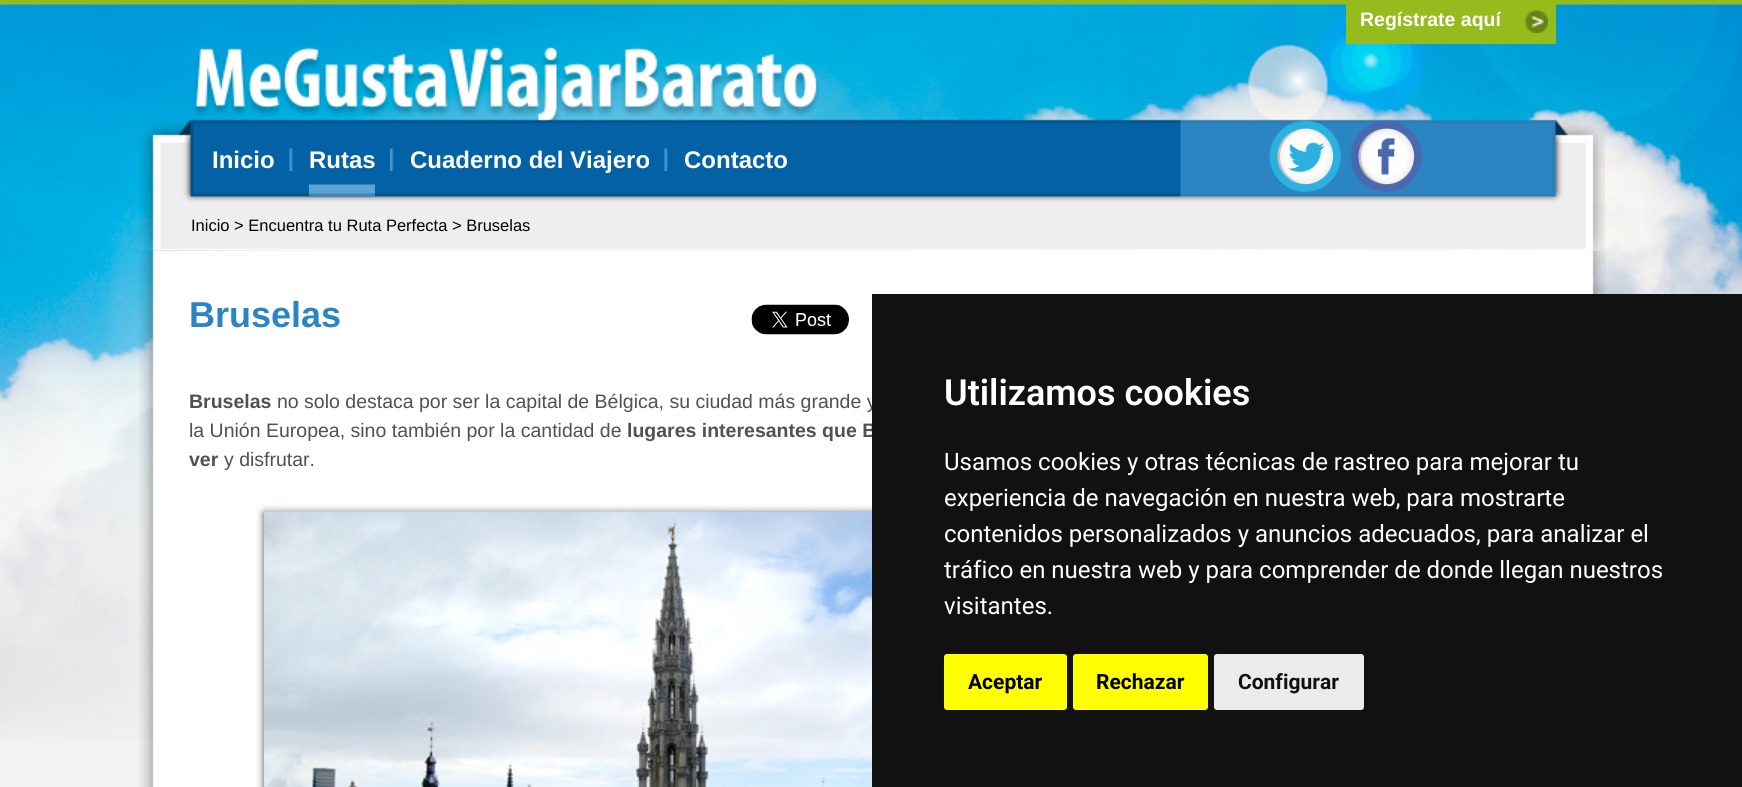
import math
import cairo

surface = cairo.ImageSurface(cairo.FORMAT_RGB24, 1742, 787)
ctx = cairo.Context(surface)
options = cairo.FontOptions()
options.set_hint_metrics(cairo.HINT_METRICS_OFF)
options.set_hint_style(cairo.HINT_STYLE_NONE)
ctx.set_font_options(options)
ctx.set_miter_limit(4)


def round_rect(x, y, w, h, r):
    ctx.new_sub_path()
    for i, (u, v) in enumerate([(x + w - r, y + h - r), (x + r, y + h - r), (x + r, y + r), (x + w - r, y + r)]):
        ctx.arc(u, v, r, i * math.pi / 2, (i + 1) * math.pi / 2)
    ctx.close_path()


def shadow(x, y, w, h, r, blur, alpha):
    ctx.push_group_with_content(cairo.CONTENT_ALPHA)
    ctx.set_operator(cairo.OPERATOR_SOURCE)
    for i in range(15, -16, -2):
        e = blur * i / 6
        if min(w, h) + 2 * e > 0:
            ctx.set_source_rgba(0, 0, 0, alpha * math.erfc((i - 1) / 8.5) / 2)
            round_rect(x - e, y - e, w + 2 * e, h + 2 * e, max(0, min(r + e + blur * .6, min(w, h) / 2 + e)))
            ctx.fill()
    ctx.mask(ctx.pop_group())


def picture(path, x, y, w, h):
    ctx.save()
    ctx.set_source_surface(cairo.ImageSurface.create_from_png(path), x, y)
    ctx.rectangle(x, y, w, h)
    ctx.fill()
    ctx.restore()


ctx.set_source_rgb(0.584, 0.733, 0.114)
ctx.paint()
picture("img2.png", 0, 4, 1742, 736)
ctx.set_source_rgb(0.584, 0.733, 0.114)
ctx.rectangle(1346, 4, 210, 40)
ctx.fill()
picture("img1.png", 1525, 10, 23, 23)
ctx.select_font_face("Liberation Sans", cairo.FONT_SLANT_NORMAL, cairo.FONT_WEIGHT_BOLD)
ctx.set_font_size(19.5)
ctx.set_source_rgb(1, 1, 1)
ctx.move_to(1360, 26)
ctx.show_text("Regístrate aquí")
ctx.set_source_rgb(0.953, 0.949, 0.941)
ctx.rectangle(0, 740, 154, 47)
ctx.fill()
picture("img3.png", 193, 47, 626, 74)
picture("img10.png", 139, 250, 1467, 537)
picture("img4.png", 139, 119, 1466, 132)
ctx.set_font_size(24)
ctx.set_source_rgb(1, 1, 1)
ctx.move_to(212, 168)
ctx.show_text("Inicio")
picture("img5.png", 289, 148, 4, 23)
picture("img6.png", 309, 184, 66, 13)
ctx.move_to(309, 168)
ctx.show_text("Rutas")
picture("img7.png", 390, 148, 4, 23)
ctx.move_to(410, 168)
ctx.show_text("Cuaderno del Viajero")
picture("img5.png", 664, 148, 4, 23)
ctx.move_to(684, 168)
ctx.show_text("Contacto")
picture("img8.png", 1269, 120, 72, 73)
picture("img9.png", 1350, 120, 72, 73)
ctx.select_font_face("Liberation Sans")
ctx.set_font_size(16.5)
ctx.set_source_rgb(0, 0, 0)
ctx.move_to(191, 231)
ctx.show_text("Inicio > Encuentra tu Ruta Perfecta > Bruselas")
ctx.select_font_face("Liberation Sans", cairo.FONT_SLANT_NORMAL, cairo.FONT_WEIGHT_BOLD)
ctx.set_font_size(36)
ctx.set_source_rgb(0.169, 0.522, 0.761)
ctx.move_to(189, 327)
ctx.show_text("Bruselas")
picture("img11.png", 751, 304, 98, 31)
ctx.set_font_size(19.5)
ctx.set_source_rgb(0.318, 0.318, 0.318)
ctx.move_to(189, 408)
ctx.show_text("Bruselas")
ctx.select_font_face("Liberation Sans")
ctx.move_to(277, 408)
ctx.show_text("no solo destaca por ser la capital de Bélgica, su ciudad más grande y")
ctx.move_to(189, 437)
ctx.show_text("la Unión Europea, sino también por la cantidad de")
ctx.select_font_face("Liberation Sans", cairo.FONT_SLANT_NORMAL, cairo.FONT_WEIGHT_BOLD)
ctx.move_to(627, 437)
ctx.show_text("lugares interesantes que B")
ctx.move_to(189, 466)
ctx.show_text("ver")
ctx.select_font_face("Liberation Sans")
ctx.move_to(224, 466)
ctx.show_text("y disfrutar.")
ctx.set_source_rgb(0.29, 0.29, 0.29)
shadow(264, 513, 783, 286, 0, 4, 1)
picture("img12.png", 264, 511, 608, 276)
ctx.set_source_rgb(0.067, 0.067, 0.067)
ctx.rectangle(872, 294, 870, 493)
ctx.fill()
ctx.select_font_face("Roboto SemiBold")
ctx.set_font_size(36)
ctx.set_source_rgb(1, 1, 1)
ctx.move_to(944, 405)
ctx.show_text("Utilizamos cookies")
ctx.select_font_face("Roboto")
ctx.set_font_size(24)
ctx.move_to(944, 470)
ctx.show_text("Usamos cookies y otras técnicas de rastreo para mejorar tu")
ctx.move_to(944, 506)
ctx.show_text("experiencia de navegación en nuestra web, para mostrarte")
ctx.move_to(944, 542)
ctx.show_text("contenidos personalizados y anuncios adecuados, para analizar el")
ctx.move_to(944, 578)
ctx.show_text("tráfico en nuestra web y para comprender de donde llegan nuestros")
ctx.move_to(944, 614)
ctx.show_text("visitantes.")
ctx.set_source_rgb(1, 1, 0)
round_rect(944, 654, 123, 56, 3)
ctx.fill()
ctx.select_font_face("Roboto", cairo.FONT_SLANT_NORMAL, cairo.FONT_WEIGHT_BOLD)
ctx.set_font_size(21)
ctx.set_source_rgb(0, 0, 0)
ctx.move_to(968, 689)
ctx.show_text("Aceptar")
ctx.set_source_rgb(1, 1, 0)
round_rect(1073, 654, 135, 56, 3)
ctx.fill()
ctx.set_source_rgb(0, 0, 0)
ctx.move_to(1096, 689)
ctx.show_text("Rechazar")
ctx.set_source_rgb(0.918, 0.918, 0.918)
round_rect(1214, 654, 150, 56, 3)
ctx.fill()
ctx.set_source_rgb(0.067, 0.067, 0.067)
ctx.move_to(1238, 689)
ctx.show_text("Configurar")
surface.write_to_png("page.png")
